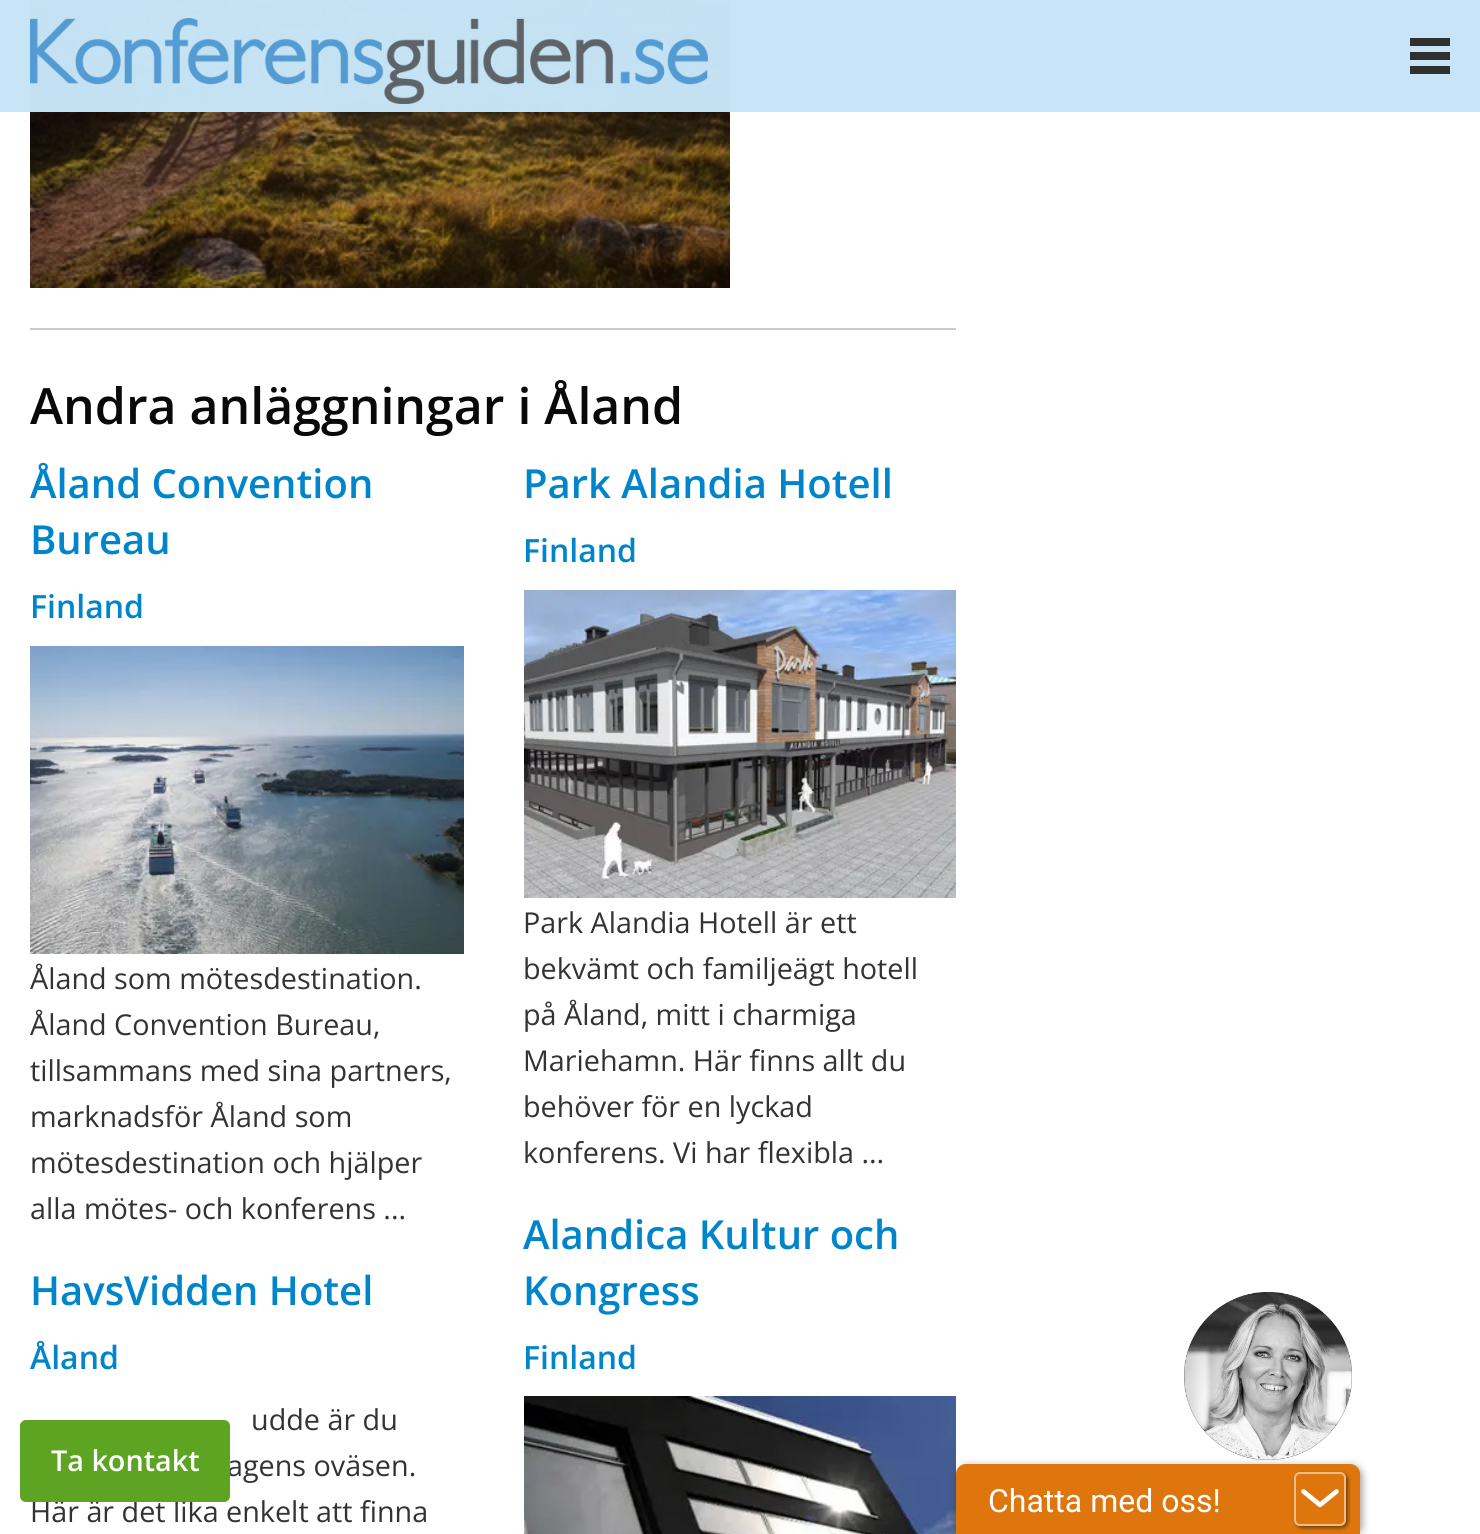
import math
import cairo

surface = cairo.ImageSurface(cairo.FORMAT_RGB24, 1480, 1534)
ctx = cairo.Context(surface)
options = cairo.FontOptions()
options.set_hint_metrics(cairo.HINT_METRICS_OFF)
options.set_hint_style(cairo.HINT_STYLE_NONE)
ctx.set_font_options(options)
ctx.set_miter_limit(4)


def round_rect(x, y, w, h, r):
    ctx.new_sub_path()
    for i, (u, v) in enumerate([(x + w - r, y + h - r), (x + r, y + h - r), (x + r, y + r), (x + w - r, y + r)]):
        ctx.arc(u, v, r, i * math.pi / 2, (i + 1) * math.pi / 2)
    ctx.close_path()


def shadow(x, y, w, h, r, blur, alpha):
    ctx.push_group_with_content(cairo.CONTENT_ALPHA)
    ctx.set_operator(cairo.OPERATOR_SOURCE)
    for i in range(15, -16, -2):
        e = blur * i / 6
        if min(w, h) + 2 * e > 0:
            ctx.set_source_rgba(0, 0, 0, alpha * math.erfc((i - 1) / 8.5) / 2)
            round_rect(x - e, y - e, w + 2 * e, h + 2 * e, max(0, min(r + e + blur * .6, min(w, h) / 2 + e)))
            ctx.fill()
    ctx.mask(ctx.pop_group())


def picture(path, x, y, w, h):
    ctx.save()
    ctx.set_source_surface(cairo.ImageSurface.create_from_png(path), x, y)
    ctx.rectangle(x, y, w, h)
    ctx.fill()
    ctx.restore()


ctx.set_source_rgb(1, 1, 1)
ctx.paint()
picture("img1.png", 30, 0, 700, 288)
ctx.set_source_rgb(0.792, 0.792, 0.792)
ctx.rectangle(30, 328, 926, 2)
ctx.fill()
ctx.select_font_face("Open Sans SemiBold")
ctx.set_font_size(50)
ctx.set_source_rgb(0.039, 0.039, 0.039)
ctx.move_to(30, 424)
ctx.show_text("Andra anläggningar i Åland")
ctx.set_font_size(40)
ctx.set_source_rgb(0, 0.522, 0.796)
ctx.move_to(30, 498)
ctx.show_text("Åland Convention")
ctx.move_to(30, 554)
ctx.show_text("Bureau")
ctx.set_font_size(32)
ctx.move_to(30, 618)
ctx.show_text("Finland")
picture("img2.png", 30, 646, 434, 308)
ctx.select_font_face("Open Sans")
ctx.set_font_size(28.75)
ctx.set_source_rgb(0.2, 0.2, 0.2)
ctx.move_to(30, 989)
ctx.show_text("Åland som mötesdestination.")
ctx.move_to(30, 1035)
ctx.show_text("Åland Convention Bureau,")
ctx.move_to(30, 1081)
ctx.show_text("tillsammans med sina partners,")
ctx.move_to(30, 1127)
ctx.show_text("marknadsför Åland som")
ctx.move_to(30, 1173)
ctx.show_text("mötesdestination och hjälper")
ctx.move_to(30, 1219)
ctx.show_text("alla mötes- och konferens ...")
ctx.select_font_face("Open Sans SemiBold")
ctx.set_font_size(40)
ctx.set_source_rgb(0, 0.522, 0.796)
ctx.move_to(30, 1305)
ctx.show_text("HavsVidden Hotel")
ctx.set_font_size(32)
ctx.move_to(30, 1369)
ctx.show_text("Åland")
ctx.select_font_face("Open Sans")
ctx.set_font_size(28.75)
ctx.set_source_rgb(0.2, 0.2, 0.2)
ctx.move_to(251, 1430)
ctx.show_text("udde är du")
ctx.move_to(227, 1476)
ctx.show_text("agens oväsen.")
ctx.move_to(30, 1522)
ctx.show_text("Här är det lika enkelt att finna")
ctx.select_font_face("Open Sans SemiBold")
ctx.set_font_size(40)
ctx.set_source_rgb(0, 0.522, 0.796)
ctx.move_to(523, 498)
ctx.show_text("Park Alandia Hotell")
ctx.set_font_size(32)
ctx.move_to(523, 562)
ctx.show_text("Finland")
picture("img3.png", 524, 590, 432, 308)
ctx.select_font_face("Open Sans")
ctx.set_font_size(28.75)
ctx.set_source_rgb(0.2, 0.2, 0.2)
ctx.move_to(523, 933)
ctx.show_text("Park Alandia Hotell är ett")
ctx.move_to(523, 979)
ctx.show_text("bekvämt och familjeägt hotell")
ctx.move_to(523, 1025)
ctx.show_text("på Åland, mitt i charmiga")
ctx.move_to(523, 1071)
ctx.show_text("Mariehamn. Här finns allt du")
ctx.move_to(523, 1117)
ctx.show_text("behöver för en lyckad")
ctx.move_to(523, 1163)
ctx.show_text("konferens. Vi har flexibla ...")
ctx.select_font_face("Open Sans SemiBold")
ctx.set_font_size(40)
ctx.set_source_rgb(0, 0.522, 0.796)
ctx.move_to(523, 1249)
ctx.show_text("Alandica Kultur och")
ctx.move_to(523, 1305)
ctx.show_text("Kongress")
ctx.set_font_size(32)
ctx.move_to(523, 1369)
ctx.show_text("Finland")
picture("img4.png", 524, 1396, 432, 138)
ctx.set_source_rgba(0.78, 0.898, 0.969, 0.9)
ctx.rectangle(0, 0, 1480, 112)
ctx.fill()
ctx.set_source_rgba(0.78, 0.898, 0.969, 0.81)
ctx.rectangle(0, 0, 1480, 112)
ctx.fill()
picture("img5.png", 30, 18, 678, 86)
ctx.set_source_rgb(0.188, 0.188, 0.188)
ctx.rectangle(1410, 38, 40, 8)
ctx.fill()
ctx.rectangle(1410, 52, 40, 8)
ctx.fill()
ctx.rectangle(1410, 66, 40, 8)
ctx.fill()
ctx.set_source_rgb(0.365, 0.643, 0.137)
round_rect(20, 1420, 210, 82, 6)
ctx.fill()
ctx.set_font_size(28.75)
ctx.set_source_rgb(1, 1, 1)
ctx.move_to(51, 1471)
ctx.show_text("Ta kontakt")
ctx.set_source_rgb(0, 0, 0)
shadow(958, 1466, 404, 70, 10, 4, 0.4)
picture("img6.png", 1184, 1292, 168, 168)
ctx.set_source_rgb(0.871, 0.463, 0.051)
ctx.new_path()
ctx.move_to(966, 1464)
ctx.line_to(1350, 1464)
ctx.curve_to(1355.5, 1464, 1360, 1468.5, 1360, 1474)
ctx.line_to(1360, 1534)
ctx.line_to(956, 1534)
ctx.line_to(956, 1474)
ctx.curve_to(956, 1468.5, 960.5, 1464, 966, 1464)
ctx.close_path()
ctx.fill()
ctx.select_font_face("Roboto")
ctx.set_font_size(32)
ctx.set_source_rgb(1, 1, 1)
ctx.move_to(988, 1512)
ctx.show_text("Chatta med oss!")
ctx.save()
ctx.set_fill_rule(cairo.FILL_RULE_EVEN_ODD)
ctx.new_path()
ctx.move_to(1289, 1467)
ctx.line_to(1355, 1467)
ctx.line_to(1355, 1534)
ctx.line_to(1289, 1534)
ctx.close_path()
ctx.move_to(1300, 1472)
ctx.line_to(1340, 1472)
ctx.curve_to(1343.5, 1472, 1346, 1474.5, 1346, 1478)
ctx.line_to(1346, 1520)
ctx.curve_to(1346, 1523.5, 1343.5, 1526, 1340, 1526)
ctx.line_to(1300, 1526)
ctx.curve_to(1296.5, 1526, 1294, 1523.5, 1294, 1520)
ctx.line_to(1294, 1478)
ctx.curve_to(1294, 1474.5, 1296.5, 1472, 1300, 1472)
ctx.close_path()
ctx.clip()
ctx.set_source_rgb(0, 0, 0)
shadow(1296, 1474, 52, 54, 6, 2, 0.5)
ctx.restore()
round_rect(1295, 1473, 50, 52, 5)
ctx.set_source_rgba(1, 1, 1, 0.5)
ctx.stroke()
picture("img7.png", 1301, 1489, 38, 19)
surface.write_to_png("page.png")
